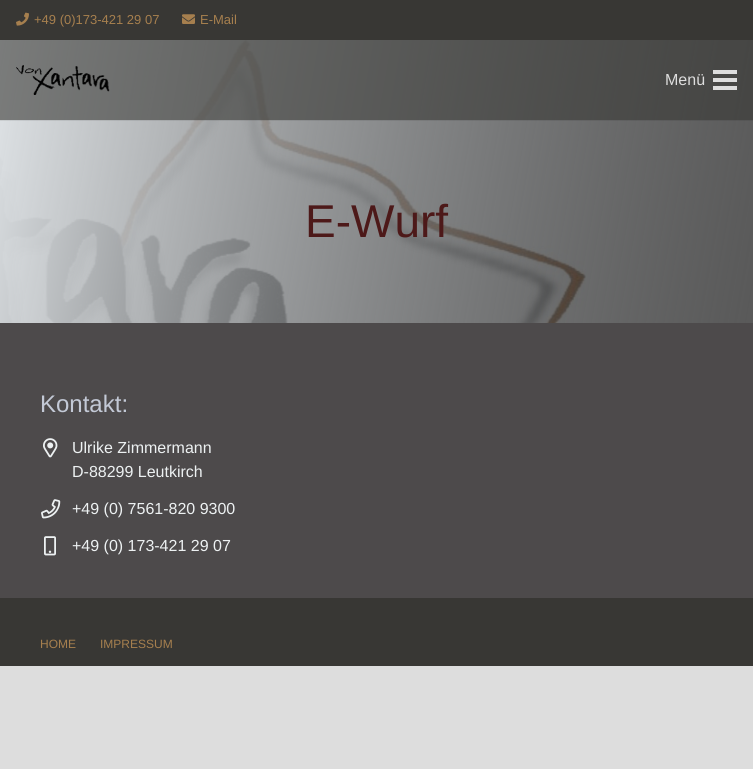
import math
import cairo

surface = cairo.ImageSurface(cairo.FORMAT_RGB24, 753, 769)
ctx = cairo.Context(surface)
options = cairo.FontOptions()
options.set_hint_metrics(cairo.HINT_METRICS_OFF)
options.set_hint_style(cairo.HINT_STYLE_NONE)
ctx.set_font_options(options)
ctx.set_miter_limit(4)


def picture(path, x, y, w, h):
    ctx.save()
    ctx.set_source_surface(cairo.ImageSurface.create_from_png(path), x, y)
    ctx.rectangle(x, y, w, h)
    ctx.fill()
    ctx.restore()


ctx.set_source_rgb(0.867, 0.867, 0.867)
ctx.paint()
ctx.set_source_rgb(1, 1, 1)
ctx.rectangle(586, 40, 167, 283)
ctx.fill()
ctx.set_source_rgb(0.22, 0.216, 0.204)
ctx.rectangle(0, 0, 753, 40)
ctx.fill()
picture("img1.png", 16, 12, 13, 14)
ctx.select_font_face("Liberation Sans")
ctx.set_font_size(13)
ctx.set_source_rgb(0.651, 0.498, 0.306)
ctx.move_to(34, 24)
ctx.show_text("+49 (0)173-421 29 07")
picture("img2.png", 182, 14, 13, 10)
ctx.move_to(200, 24)
ctx.show_text("E-Mail")
picture("img4.png", 0, 40, 586, 283)
gradient = cairo.LinearGradient(-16, 92, 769, 231)
gradient.add_color_stop_rgba(0, 0.882, 0.898, 0.91, 1)
gradient.add_color_stop_rgba(1, 0, 0, 0, 0.65)
ctx.set_source(gradient)
ctx.rectangle(0, 40, 753, 283)
ctx.fill()
ctx.set_source_rgba(0, 0, 0, 0.08)
ctx.rectangle(0, 120, 753, 1)
ctx.fill()
ctx.set_source_rgba(0.22, 0.216, 0.204, 0.6)
ctx.rectangle(0, 40, 753, 80)
ctx.fill()
picture("img3.png", 16, 65, 94, 30)
ctx.set_font_size(16)
ctx.set_source_rgb(0.867, 0.867, 0.867)
ctx.move_to(665, 85)
ctx.show_text("Menü")
ctx.rectangle(713, 78, 24, 4)
ctx.fill()
ctx.rectangle(713, 70, 24, 4)
ctx.fill()
ctx.rectangle(713, 86, 24, 4)
ctx.fill()
ctx.set_font_size(46)
ctx.set_source_rgb(0.302, 0.098, 0.098)
ctx.move_to(305, 237)
ctx.show_text("E-Wurf")
ctx.set_source_rgb(0.302, 0.29, 0.294)
ctx.rectangle(0, 323, 753, 275)
ctx.fill()
ctx.set_font_size(24)
ctx.set_source_rgb(0.765, 0.788, 0.839)
ctx.move_to(40, 412)
ctx.show_text("Kontakt:")
picture("img5.png", 43, 438, 15, 20)
ctx.set_font_size(16)
ctx.set_source_rgb(0.929, 0.945, 0.949)
ctx.move_to(72, 453)
ctx.show_text("Ulrike Zimmermann")
ctx.move_to(72, 477)
ctx.show_text("D-88299 Leutkirch")
picture("img6.png", 41, 499, 20, 20)
ctx.move_to(72, 514)
ctx.show_text("+49 (0) 7561-820 9300")
picture("img7.png", 44, 536, 12, 20)
ctx.move_to(72, 551)
ctx.show_text("+49 (0) 173-421 29 07")
ctx.set_source_rgb(0.22, 0.216, 0.204)
ctx.rectangle(0, 598, 753, 68)
ctx.fill()
ctx.set_font_size(12)
ctx.set_source_rgb(0.651, 0.498, 0.306)
ctx.move_to(40, 648)
ctx.show_text("HOME")
ctx.move_to(100, 648)
ctx.show_text("IMPRESSUM")
surface.write_to_png("page.png")
